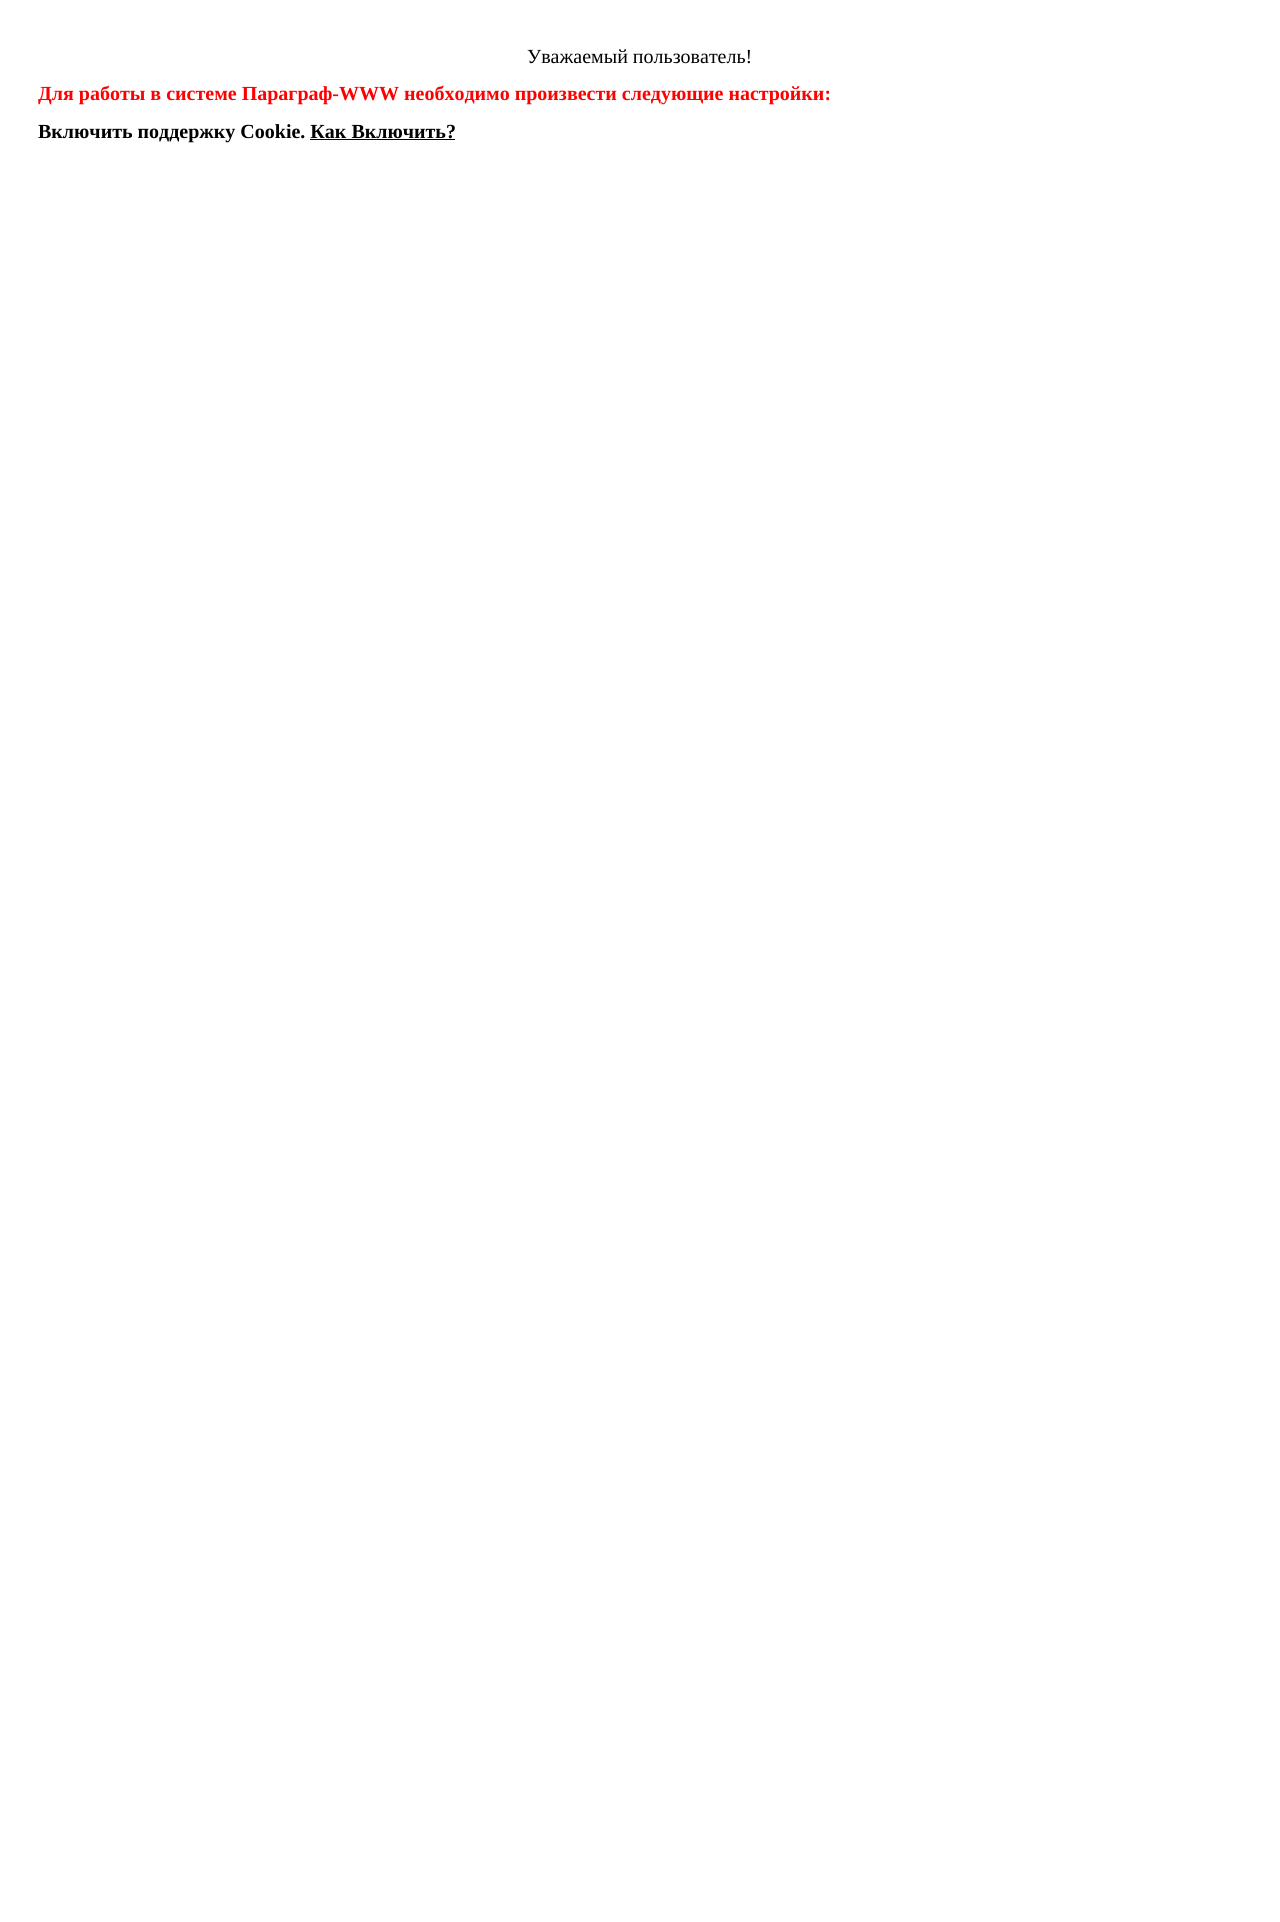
import math
import cairo

surface = cairo.ImageSurface(cairo.FORMAT_RGB24, 1280, 1922)
ctx = cairo.Context(surface)
options = cairo.FontOptions()
options.set_hint_metrics(cairo.HINT_METRICS_OFF)
options.set_hint_style(cairo.HINT_STYLE_NONE)
ctx.set_font_options(options)
ctx.set_miter_limit(4)


ctx.set_source_rgb(1, 1, 1)
ctx.paint()
ctx.select_font_face("Liberation Serif")
ctx.set_font_size(20)
ctx.set_source_rgb(0, 0, 0)
ctx.move_to(527, 63)
ctx.show_text("Уважаемый пользователь!")
ctx.select_font_face("Liberation Serif", cairo.FONT_SLANT_NORMAL, cairo.FONT_WEIGHT_BOLD)
ctx.set_source_rgb(1, 0, 0)
ctx.move_to(38, 100)
ctx.show_text("Для работы в системе Параграф-WWW необходимо произвести следующие настройки:")
ctx.set_source_rgb(0, 0, 0)
ctx.move_to(38, 138)
ctx.show_text("Включить поддержку Cookie. Как Включить?")
ctx.rectangle(310, 139, 145, 1)
ctx.fill()
surface.write_to_png("page.png")
